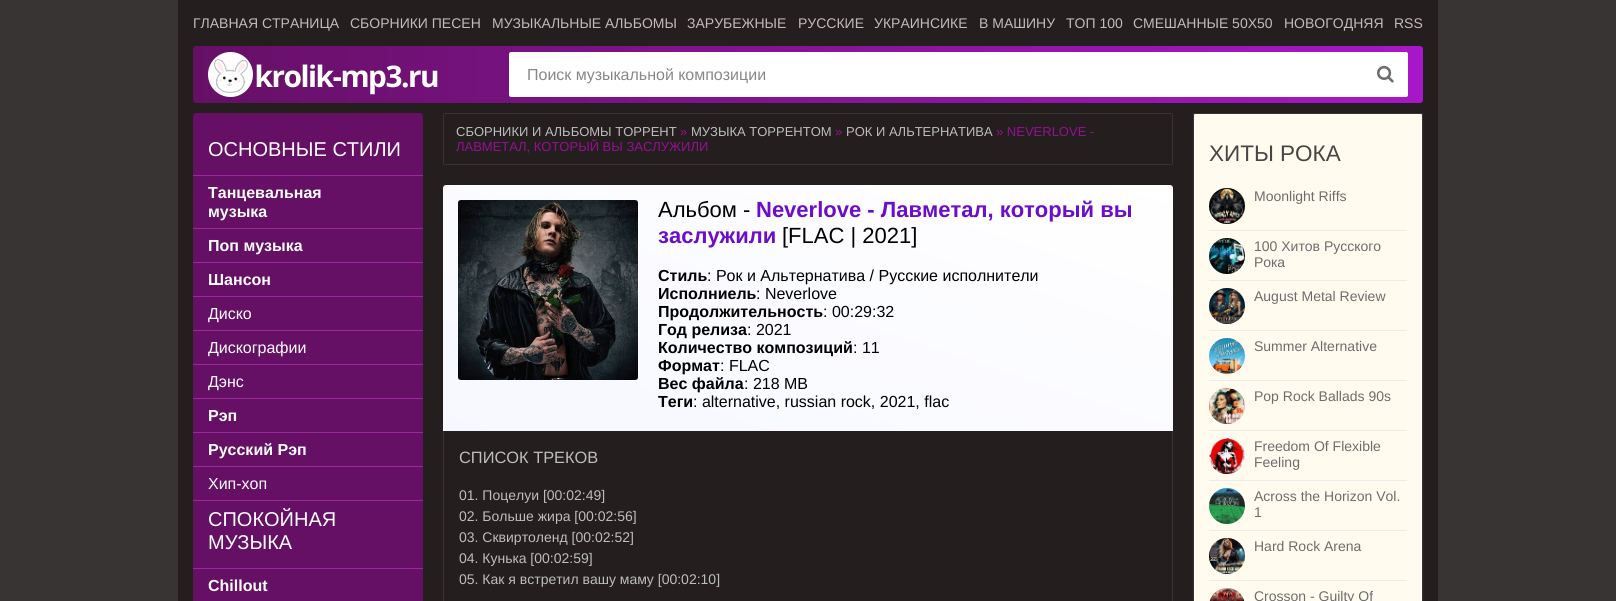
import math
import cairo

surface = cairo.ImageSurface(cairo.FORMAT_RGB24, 1616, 601)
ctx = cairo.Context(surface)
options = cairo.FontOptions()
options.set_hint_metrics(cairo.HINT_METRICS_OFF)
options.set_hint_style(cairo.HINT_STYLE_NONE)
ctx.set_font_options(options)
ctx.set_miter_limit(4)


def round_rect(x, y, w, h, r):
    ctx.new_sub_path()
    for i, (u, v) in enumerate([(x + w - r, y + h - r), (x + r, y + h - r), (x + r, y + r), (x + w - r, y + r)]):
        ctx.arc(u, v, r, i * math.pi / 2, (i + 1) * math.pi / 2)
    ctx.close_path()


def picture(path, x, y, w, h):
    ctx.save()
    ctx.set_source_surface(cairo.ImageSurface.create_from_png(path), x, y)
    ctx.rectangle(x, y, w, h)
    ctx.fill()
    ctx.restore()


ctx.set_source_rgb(0.22, 0.204, 0.204)
ctx.paint()
ctx.set_source_rgb(0.141, 0.118, 0.118)
ctx.rectangle(178, 0, 1260, 601)
ctx.fill()
ctx.select_font_face("Liberation Sans")
ctx.set_font_size(14)
ctx.set_source_rgb(0.741, 0.741, 0.741)
ctx.move_to(193, 28)
ctx.show_text("ГЛАВНАЯ СТРАНИЦА")
ctx.move_to(350, 28)
ctx.show_text("СБОРНИКИ ПЕСЕН")
ctx.move_to(492, 28)
ctx.show_text("МУЗЫКАЛЬНЫЕ АЛЬБОМЫ")
ctx.move_to(687, 28)
ctx.show_text("ЗАРУБЕЖНЫЕ")
ctx.move_to(798, 28)
ctx.show_text("РУССКИЕ")
ctx.move_to(874, 28)
ctx.show_text("УКРАИНСИКЕ")
ctx.move_to(979, 28)
ctx.show_text("В МАШИНУ")
ctx.move_to(1066, 28)
ctx.show_text("ТОП 100")
ctx.move_to(1133, 28)
ctx.show_text("СМЕШАННЫЕ 50X50")
ctx.move_to(1284, 28)
ctx.show_text("НОВОГОДНЯЯ")
ctx.move_to(1394, 28)
ctx.show_text("RSS")
gradient = cairo.LinearGradient(193, 75, 1423, 74)
gradient.add_color_stop_rgba(0, 0.396, 0.063, 0.396, 1)
gradient.add_color_stop_rgba(1, 0.659, 0.09, 0.784, 1)
ctx.set_source(gradient)
round_rect(193, 46, 1230, 57, 3)
ctx.fill()
picture("img1.png", 208, 52, 230, 45)
ctx.set_source_rgb(1, 1, 1)
round_rect(509, 52, 899, 45, 2)
ctx.fill()
ctx.set_font_size(16)
ctx.set_source_rgb(0.533, 0.533, 0.533)
ctx.move_to(527, 80)
ctx.show_text("Поиск музыкальной композиции")
picture("img2.png", 1377, 65, 17, 18)
ctx.set_source_rgb(0.396, 0.063, 0.396)
round_rect(193, 113, 230, 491, 3)
ctx.fill()
ctx.set_font_size(20)
ctx.set_source_rgb(1, 1, 1)
ctx.move_to(208, 156)
ctx.show_text("ОСНОВНЫЕ СТИЛИ")
ctx.set_source_rgb(0.604, 0.165, 0.6)
ctx.rectangle(193, 175, 230, 1)
ctx.fill()
ctx.rectangle(193, 228, 230, 1)
ctx.fill()
ctx.select_font_face("Liberation Sans", cairo.FONT_SLANT_NORMAL, cairo.FONT_WEIGHT_BOLD)
ctx.set_font_size(16)
ctx.set_source_rgb(1, 1, 1)
ctx.move_to(208, 198)
ctx.show_text("Танцевальная")
ctx.move_to(208, 217)
ctx.show_text("музыка")
ctx.set_source_rgb(0.604, 0.165, 0.6)
ctx.rectangle(193, 262, 230, 1)
ctx.fill()
ctx.set_source_rgb(1, 1, 1)
ctx.move_to(208, 251)
ctx.show_text("Поп музыка")
ctx.set_source_rgb(0.604, 0.165, 0.6)
ctx.rectangle(193, 296, 230, 1)
ctx.fill()
ctx.set_source_rgb(1, 1, 1)
ctx.move_to(208, 285)
ctx.show_text("Шансон")
ctx.set_source_rgb(0.604, 0.165, 0.6)
ctx.rectangle(193, 330, 230, 1)
ctx.fill()
ctx.select_font_face("Liberation Sans")
ctx.set_source_rgb(1, 1, 1)
ctx.move_to(208, 319)
ctx.show_text("Диско")
ctx.set_source_rgb(0.604, 0.165, 0.6)
ctx.rectangle(193, 364, 230, 1)
ctx.fill()
ctx.set_source_rgb(1, 1, 1)
ctx.move_to(208, 353)
ctx.show_text("Дискографии")
ctx.set_source_rgb(0.604, 0.165, 0.6)
ctx.rectangle(193, 398, 230, 1)
ctx.fill()
ctx.set_source_rgb(1, 1, 1)
ctx.move_to(208, 387)
ctx.show_text("Дэнс")
ctx.set_source_rgb(0.604, 0.165, 0.6)
ctx.rectangle(193, 432, 230, 1)
ctx.fill()
ctx.select_font_face("Liberation Sans", cairo.FONT_SLANT_NORMAL, cairo.FONT_WEIGHT_BOLD)
ctx.set_source_rgb(1, 1, 1)
ctx.move_to(208, 421)
ctx.show_text("Рэп")
ctx.set_source_rgb(0.604, 0.165, 0.6)
ctx.rectangle(193, 466, 230, 1)
ctx.fill()
ctx.set_source_rgb(1, 1, 1)
ctx.move_to(208, 455)
ctx.show_text("Русский Рэп")
ctx.set_source_rgb(0.604, 0.165, 0.6)
ctx.rectangle(193, 500, 230, 1)
ctx.fill()
ctx.select_font_face("Liberation Sans")
ctx.set_source_rgb(1, 1, 1)
ctx.move_to(208, 489)
ctx.show_text("Хип-хоп")
ctx.set_font_size(20)
ctx.move_to(208, 526)
ctx.show_text("СПОКОЙНАЯ")
ctx.move_to(208, 549)
ctx.show_text("МУЗЫКА")
ctx.set_source_rgb(0.604, 0.165, 0.6)
ctx.rectangle(193, 568, 230, 1)
ctx.fill()
ctx.select_font_face("Liberation Sans", cairo.FONT_SLANT_NORMAL, cairo.FONT_WEIGHT_BOLD)
ctx.set_font_size(16)
ctx.set_source_rgb(1, 1, 1)
ctx.move_to(208, 591)
ctx.show_text("Chillout")
round_rect(443.5, 113.5, 729, 51, 1.5)
ctx.set_source_rgb(0.22, 0.204, 0.204)
ctx.set_line_width(1)
ctx.stroke()
ctx.select_font_face("Liberation Sans")
ctx.set_font_size(13)
ctx.set_source_rgb(0.741, 0.741, 0.741)
ctx.move_to(456, 136)
ctx.show_text("СБОРНИКИ И АЛЬБОМЫ ТОРРЕНТ")
ctx.set_source_rgb(0.584, 0.063, 0.576)
ctx.move_to(680, 136)
ctx.show_text("»")
ctx.set_source_rgb(0.741, 0.741, 0.741)
ctx.move_to(691, 136)
ctx.show_text("МУЗЫКА ТОРРЕНТОМ")
ctx.set_source_rgb(0.584, 0.063, 0.576)
ctx.move_to(835, 136)
ctx.show_text("»")
ctx.set_source_rgb(0.741, 0.741, 0.741)
ctx.move_to(846, 136)
ctx.show_text("РОК И АЛЬТЕРНАТИВА")
ctx.set_source_rgb(0.584, 0.063, 0.576)
ctx.move_to(996, 136)
ctx.show_text("» NEVERLOVE -")
ctx.move_to(456, 151)
ctx.show_text("ЛАВМЕТАЛ, КОТОРЫЙ ВЫ ЗАСЛУЖИЛИ")
round_rect(443.5, 185.5, 729, 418, 1.5)
ctx.set_source_rgb(0.22, 0.204, 0.204)
ctx.stroke()
gradient = cairo.LinearGradient(734, 529, 882, 87)
gradient.add_color_stop_rgba(0, 0.969, 0.973, 1, 1)
gradient.add_color_stop_rgba(0.09, 0.973, 0.976, 1, 1)
gradient.add_color_stop_rgba(0.18, 0.973, 0.976, 1, 1)
gradient.add_color_stop_rgba(0.27, 0.976, 0.98, 1, 1)
gradient.add_color_stop_rgba(0.36, 0.98, 0.984, 1, 1)
gradient.add_color_stop_rgba(0.45, 0.984, 0.984, 1, 1)
gradient.add_color_stop_rgba(0.55, 0.984, 0.988, 1, 1)
gradient.add_color_stop_rgba(0.64, 0.988, 0.988, 1, 1)
gradient.add_color_stop_rgba(0.73, 0.992, 0.992, 1, 1)
gradient.add_color_stop_rgba(0.82, 0.996, 0.996, 1, 1)
gradient.add_color_stop_rgba(0.91, 0.996, 0.996, 1, 1)
gradient.add_color_stop_rgba(1, 1, 1, 1, 1)
ctx.set_source(gradient)
ctx.new_path()
ctx.move_to(446, 185)
ctx.line_to(1170, 185)
ctx.curve_to(1171.5, 185, 1173, 186.5, 1173, 188)
ctx.line_to(1173, 431)
ctx.line_to(443, 431)
ctx.line_to(443, 188)
ctx.curve_to(443, 186.5, 444.5, 185, 446, 185)
ctx.close_path()
ctx.fill()
picture("img3.png", 458, 200, 180, 180)
ctx.set_font_size(22)
ctx.set_source_rgb(0, 0, 0)
ctx.move_to(658, 217)
ctx.show_text("Альбом -")
ctx.select_font_face("Liberation Sans", cairo.FONT_SLANT_NORMAL, cairo.FONT_WEIGHT_BOLD)
ctx.set_source_rgb(0.424, 0.047, 0.8)
ctx.move_to(756, 217)
ctx.show_text("Neverlove - Лавметал, который вы")
ctx.move_to(658, 243)
ctx.show_text("заслужили")
ctx.select_font_face("Liberation Sans")
ctx.set_source_rgb(0, 0, 0)
ctx.move_to(782, 243)
ctx.show_text("[FLAC | 2021]")
ctx.select_font_face("Liberation Sans", cairo.FONT_SLANT_NORMAL, cairo.FONT_WEIGHT_BOLD)
ctx.set_font_size(16)
ctx.move_to(658, 281)
ctx.show_text("Стиль")
ctx.select_font_face("Liberation Sans")
ctx.move_to(707, 281)
ctx.show_text(": Рок и Альтернатива / Русские исполнители")
ctx.select_font_face("Liberation Sans", cairo.FONT_SLANT_NORMAL, cairo.FONT_WEIGHT_BOLD)
ctx.move_to(658, 299)
ctx.show_text("Исполниель")
ctx.select_font_face("Liberation Sans")
ctx.move_to(756, 299)
ctx.show_text(": Neverlove")
ctx.select_font_face("Liberation Sans", cairo.FONT_SLANT_NORMAL, cairo.FONT_WEIGHT_BOLD)
ctx.move_to(658, 317)
ctx.show_text("Продолжительность")
ctx.select_font_face("Liberation Sans")
ctx.move_to(823, 317)
ctx.show_text(": 00:29:32")
ctx.select_font_face("Liberation Sans", cairo.FONT_SLANT_NORMAL, cairo.FONT_WEIGHT_BOLD)
ctx.move_to(658, 335)
ctx.show_text("Год релиза")
ctx.select_font_face("Liberation Sans")
ctx.move_to(747, 335)
ctx.show_text(": 2021")
ctx.select_font_face("Liberation Sans", cairo.FONT_SLANT_NORMAL, cairo.FONT_WEIGHT_BOLD)
ctx.move_to(658, 353)
ctx.show_text("Количество композиций")
ctx.select_font_face("Liberation Sans")
ctx.move_to(853, 353)
ctx.show_text(": 11")
ctx.select_font_face("Liberation Sans", cairo.FONT_SLANT_NORMAL, cairo.FONT_WEIGHT_BOLD)
ctx.move_to(658, 371)
ctx.show_text("Формат")
ctx.select_font_face("Liberation Sans")
ctx.move_to(720, 371)
ctx.show_text(": FLAC")
ctx.select_font_face("Liberation Sans", cairo.FONT_SLANT_NORMAL, cairo.FONT_WEIGHT_BOLD)
ctx.move_to(658, 389)
ctx.show_text("Вес файла")
ctx.select_font_face("Liberation Sans")
ctx.move_to(744, 389)
ctx.show_text(": 218 MB")
ctx.select_font_face("Liberation Sans", cairo.FONT_SLANT_NORMAL, cairo.FONT_WEIGHT_BOLD)
ctx.move_to(658, 407)
ctx.show_text("Теги")
ctx.select_font_face("Liberation Sans")
ctx.move_to(693, 407)
ctx.show_text(": alternative, russian rock, 2021, flac")
ctx.set_font_size(16.4)
ctx.set_source_rgb(0.741, 0.741, 0.741)
ctx.move_to(459, 463)
ctx.show_text("СПИСОК ТРЕКОВ")
ctx.set_font_size(14)
ctx.move_to(459, 500)
ctx.show_text("01. Поцелуи [00:02:49]")
ctx.move_to(459, 521)
ctx.show_text("02. Больше жира [00:02:56]")
ctx.move_to(459, 542)
ctx.show_text("03. Сквиртоленд [00:02:52]")
ctx.move_to(459, 563)
ctx.show_text("04. Кунька [00:02:59]")
ctx.move_to(459, 584)
ctx.show_text("05. Как я встретил вашу маму [00:02:10]")
ctx.set_source_rgb(1, 0.984, 0.937)
round_rect(1193.5, 113.5, 229, 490, 1.5)
ctx.fill_preserve()
ctx.set_source_rgb(0.22, 0.204, 0.204)
ctx.stroke()
ctx.set_font_size(22.5)
ctx.set_source_rgb(0.278, 0.275, 0.275)
ctx.move_to(1209, 161)
ctx.show_text("ХИТЫ РОКА")
ctx.set_source_rgb(0.925, 0.922, 0.91)
ctx.rectangle(1209, 230, 198, 1)
ctx.fill()
picture("img4.png", 1209, 188, 36, 36)
ctx.set_font_size(14)
ctx.set_source_rgb(0.427, 0.427, 0.427)
ctx.move_to(1254, 201)
ctx.show_text("Moonlight Riffs")
ctx.set_source_rgb(0.925, 0.922, 0.91)
ctx.rectangle(1209, 280, 198, 1)
ctx.fill()
picture("img5.png", 1209, 238, 36, 36)
ctx.set_source_rgb(0.427, 0.427, 0.427)
ctx.move_to(1254, 251)
ctx.show_text("100 Хитов Русского")
ctx.move_to(1254, 267)
ctx.show_text("Рока")
ctx.set_source_rgb(0.925, 0.922, 0.91)
ctx.rectangle(1209, 330, 198, 1)
ctx.fill()
picture("img6.png", 1209, 288, 36, 36)
ctx.set_source_rgb(0.427, 0.427, 0.427)
ctx.move_to(1254, 301)
ctx.show_text("August Metal Review")
ctx.set_source_rgb(0.925, 0.922, 0.91)
ctx.rectangle(1209, 380, 198, 1)
ctx.fill()
picture("img7.png", 1209, 338, 36, 36)
ctx.set_source_rgb(0.427, 0.427, 0.427)
ctx.move_to(1254, 351)
ctx.show_text("Summer Alternative")
ctx.set_source_rgb(0.925, 0.922, 0.91)
ctx.rectangle(1209, 430, 198, 1)
ctx.fill()
picture("img8.png", 1209, 388, 36, 36)
ctx.set_source_rgb(0.427, 0.427, 0.427)
ctx.move_to(1254, 401)
ctx.show_text("Pop Rock Ballads 90s")
ctx.set_source_rgb(0.925, 0.922, 0.91)
ctx.rectangle(1209, 480, 198, 1)
ctx.fill()
picture("img9.png", 1209, 438, 36, 36)
ctx.set_source_rgb(0.427, 0.427, 0.427)
ctx.move_to(1254, 451)
ctx.show_text("Freedom Of Flexible")
ctx.move_to(1254, 467)
ctx.show_text("Feeling")
ctx.set_source_rgb(0.925, 0.922, 0.91)
ctx.rectangle(1209, 530, 198, 1)
ctx.fill()
picture("img10.png", 1209, 488, 36, 36)
ctx.set_source_rgb(0.427, 0.427, 0.427)
ctx.move_to(1254, 501)
ctx.show_text("Across the Horizon Vol.")
ctx.move_to(1254, 517)
ctx.show_text("1")
ctx.set_source_rgb(0.925, 0.922, 0.91)
ctx.rectangle(1209, 580, 198, 1)
ctx.fill()
picture("img11.png", 1209, 538, 36, 36)
ctx.set_source_rgb(0.427, 0.427, 0.427)
ctx.move_to(1254, 551)
ctx.show_text("Hard Rock Arena")
picture("img12.png", 1209, 588, 36, 13)
ctx.move_to(1254, 601)
ctx.show_text("Crosson - Guilty Of")
surface.write_to_png("page.png")
